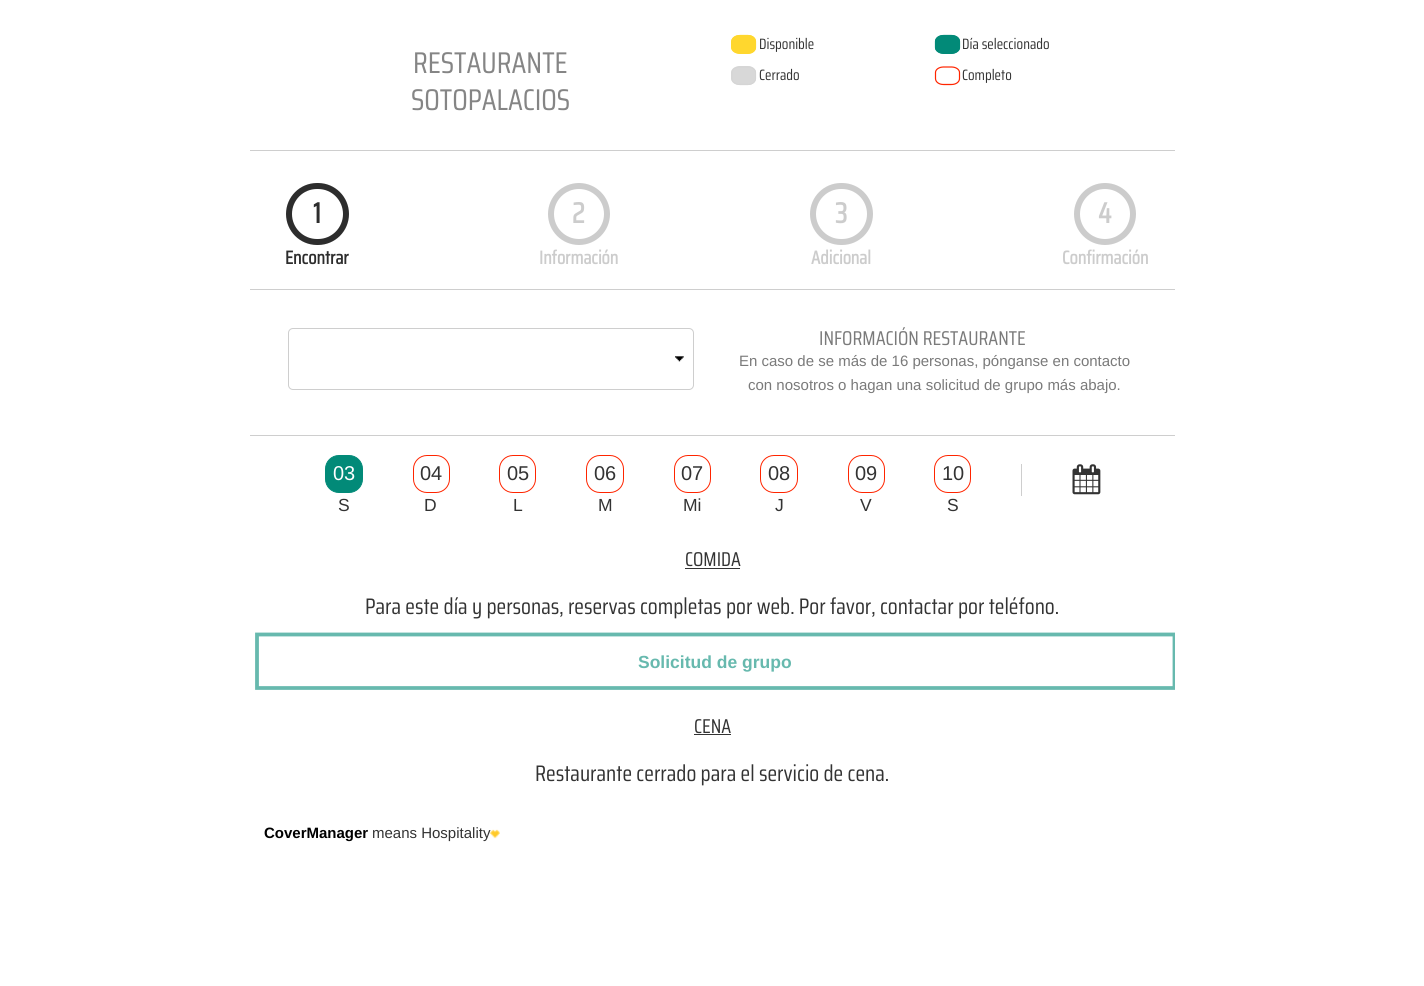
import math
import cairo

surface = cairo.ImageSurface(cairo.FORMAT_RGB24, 1424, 986)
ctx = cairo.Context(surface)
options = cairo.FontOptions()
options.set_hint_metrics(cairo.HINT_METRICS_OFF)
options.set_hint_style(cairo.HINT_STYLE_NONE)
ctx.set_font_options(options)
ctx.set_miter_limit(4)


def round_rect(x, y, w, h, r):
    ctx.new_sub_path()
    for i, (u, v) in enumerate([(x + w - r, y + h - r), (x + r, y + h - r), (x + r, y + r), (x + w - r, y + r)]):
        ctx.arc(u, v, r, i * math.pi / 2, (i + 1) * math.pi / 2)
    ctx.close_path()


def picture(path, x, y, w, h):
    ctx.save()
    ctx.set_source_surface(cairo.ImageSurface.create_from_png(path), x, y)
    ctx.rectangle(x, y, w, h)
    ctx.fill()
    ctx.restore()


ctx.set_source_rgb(1, 1, 1)
ctx.paint()
ctx.set_source_rgb(0.808, 0.808, 0.808)
ctx.rectangle(250, 150, 925, 1)
ctx.fill()
ctx.select_font_face("Saira Condensed")
ctx.set_font_size(30)
ctx.set_source_rgb(0.522, 0.522, 0.522)
ctx.move_to(413, 73)
ctx.show_text("RESTAURANTE")
ctx.move_to(411, 110)
ctx.show_text("SOTOPALACIOS")
ctx.set_source_rgb(1, 0.843, 0.18)
ctx.new_path()
ctx.move_to(740, 35)
ctx.line_to(748, 35)
ctx.curve_to(752.5, 35, 756, 38, 756, 41.5)
ctx.line_to(756, 47.5)
ctx.curve_to(756, 51, 752.5, 54, 748, 54)
ctx.line_to(740, 54)
ctx.curve_to(735, 54, 731, 51, 731, 47.5)
ctx.line_to(731, 41.5)
ctx.curve_to(731, 38, 735, 35, 740, 35)
ctx.close_path()
ctx.fill()
ctx.new_path()
ctx.move_to(740, 35.5)
ctx.line_to(748, 35.5)
ctx.curve_to(752, 35.5, 755.5, 38, 755.5, 41.5)
ctx.line_to(755.5, 47.5)
ctx.curve_to(755.5, 50.5, 752, 53, 748, 53)
ctx.line_to(740, 53)
ctx.curve_to(735.5, 53, 732, 50.5, 732, 47.5)
ctx.line_to(732, 41.5)
ctx.curve_to(732, 38, 735.5, 35.5, 740, 35.5)
ctx.close_path()
ctx.set_line_width(1.2)
ctx.stroke()
ctx.set_font_size(15)
ctx.set_source_rgb(0.2, 0.2, 0.2)
ctx.move_to(759, 49)
ctx.show_text("Disponible")
ctx.set_source_rgb(0.008, 0.541, 0.471)
ctx.new_path()
ctx.move_to(943.5, 35)
ctx.line_to(951.5, 35)
ctx.curve_to(956, 35, 960, 38, 960, 41.5)
ctx.line_to(960, 47.5)
ctx.curve_to(960, 51, 956, 54, 951.5, 54)
ctx.line_to(943.5, 54)
ctx.curve_to(939, 54, 935, 51, 935, 47.5)
ctx.line_to(935, 41.5)
ctx.curve_to(935, 38, 939, 35, 943.5, 35)
ctx.close_path()
ctx.fill()
ctx.new_path()
ctx.move_to(943.5, 35.5)
ctx.line_to(951.5, 35.5)
ctx.curve_to(956, 35.5, 959.5, 38, 959.5, 41.5)
ctx.line_to(959.5, 47.5)
ctx.curve_to(959.5, 50.5, 956, 53, 951.5, 53)
ctx.line_to(943.5, 53)
ctx.curve_to(939, 53, 935.5, 50.5, 935.5, 47.5)
ctx.line_to(935.5, 41.5)
ctx.curve_to(935.5, 38, 939, 35.5, 943.5, 35.5)
ctx.close_path()
ctx.stroke()
ctx.set_source_rgb(0.2, 0.2, 0.2)
ctx.move_to(962, 49)
ctx.show_text("Día seleccionado")
ctx.set_source_rgb(0.847, 0.847, 0.847)
ctx.new_path()
ctx.move_to(740, 66)
ctx.line_to(748, 66)
ctx.curve_to(752.5, 66, 756, 69, 756, 72.5)
ctx.line_to(756, 78.5)
ctx.curve_to(756, 82, 752.5, 85, 748, 85)
ctx.line_to(740, 85)
ctx.curve_to(735, 85, 731, 82, 731, 78.5)
ctx.line_to(731, 72.5)
ctx.curve_to(731, 69, 735, 66, 740, 66)
ctx.close_path()
ctx.fill()
ctx.new_path()
ctx.move_to(740, 67)
ctx.line_to(748, 67)
ctx.curve_to(752, 67, 755.5, 69.5, 755.5, 72.5)
ctx.line_to(755.5, 78.5)
ctx.curve_to(755.5, 82, 752, 84.5, 748, 84.5)
ctx.line_to(740, 84.5)
ctx.curve_to(735.5, 84.5, 732, 82, 732, 78.5)
ctx.line_to(732, 72.5)
ctx.curve_to(732, 69.5, 735.5, 67, 740, 67)
ctx.close_path()
ctx.set_source_rgb(0.835, 0.835, 0.835)
ctx.stroke()
ctx.set_source_rgb(0.2, 0.2, 0.2)
ctx.move_to(759, 80)
ctx.show_text("Cerrado")
ctx.new_path()
ctx.move_to(943.5, 67)
ctx.line_to(951.5, 67)
ctx.curve_to(956, 67, 959.5, 69.5, 959.5, 72.5)
ctx.line_to(959.5, 78.5)
ctx.curve_to(959.5, 82, 956, 84.5, 951.5, 84.5)
ctx.line_to(943.5, 84.5)
ctx.curve_to(939, 84.5, 935.5, 82, 935.5, 78.5)
ctx.line_to(935.5, 72.5)
ctx.curve_to(935.5, 69.5, 939, 67, 943.5, 67)
ctx.close_path()
ctx.set_source_rgb(1, 0.145, 0)
ctx.stroke()
ctx.set_source_rgb(0.2, 0.2, 0.2)
ctx.move_to(962, 80)
ctx.show_text("Completo")
ctx.set_source_rgb(0.808, 0.808, 0.808)
ctx.rectangle(250, 289, 925, 1)
ctx.fill()
round_rect(289, 186, 57, 56, 28)
ctx.set_source_rgb(0.176, 0.176, 0.176)
ctx.set_line_width(6)
ctx.stroke()
ctx.select_font_face("Saira Condensed", cairo.FONT_SLANT_NORMAL, cairo.FONT_WEIGHT_BOLD)
ctx.set_font_size(29)
ctx.move_to(313, 223)
ctx.show_text("1")
ctx.set_font_size(18.75)
ctx.move_to(285, 264)
ctx.show_text("Encontrar")
ctx.new_path()
ctx.arc(579, 214, 28, 0, 2 * math.pi)
ctx.set_source_rgb(0.8, 0.8, 0.8)
ctx.stroke()
ctx.set_font_size(29)
ctx.move_to(572, 223)
ctx.show_text("2")
ctx.set_font_size(18.75)
ctx.move_to(539, 264)
ctx.show_text("Información")
round_rect(813, 186, 57, 56, 28)
ctx.stroke()
ctx.set_font_size(29)
ctx.move_to(835, 223)
ctx.show_text("3")
ctx.set_font_size(18.75)
ctx.move_to(811, 264)
ctx.show_text("Adicional")
ctx.new_path()
ctx.arc(1105, 214, 28, 0, 2 * math.pi)
ctx.stroke()
ctx.set_font_size(29)
ctx.move_to(1098, 223)
ctx.show_text("4")
ctx.set_font_size(18.75)
ctx.move_to(1062, 264)
ctx.show_text("Confirmación")
ctx.set_source_rgb(0.808, 0.808, 0.808)
ctx.rectangle(250, 435, 925, 1)
ctx.fill()
picture("img1.png", 675, 356, 9, 6)
round_rect(288.5, 328.5, 405, 61, 4.5)
ctx.set_line_width(1)
ctx.stroke()
ctx.select_font_face("Saira Condensed")
ctx.set_font_size(20)
ctx.set_source_rgb(0.478, 0.478, 0.478)
ctx.move_to(819, 345)
ctx.show_text("INFORMACIÓN RESTAURANTE")
ctx.select_font_face("Liberation Sans")
ctx.set_font_size(15)
ctx.move_to(739, 366)
ctx.show_text("En caso de se más de 16 personas, pónganse en contacto")
ctx.move_to(748, 390)
ctx.show_text("con nosotros o hagan una solicitud de grupo más abajo.")
ctx.set_source_rgb(0.008, 0.541, 0.471)
round_rect(325.5, 455.5, 37, 37, 13.5)
ctx.fill_preserve()
ctx.stroke()
ctx.set_font_size(20)
ctx.set_source_rgb(1, 1, 1)
ctx.move_to(333, 480)
ctx.show_text("03")
ctx.set_font_size(17.5)
ctx.set_source_rgb(0.2, 0.2, 0.2)
ctx.move_to(338, 511)
ctx.show_text("S")
round_rect(413.5, 455.5, 36, 37, 13.5)
ctx.set_source_rgb(1, 0.145, 0)
ctx.stroke()
ctx.set_font_size(20)
ctx.set_source_rgb(0.2, 0.2, 0.2)
ctx.move_to(420, 480)
ctx.show_text("04")
ctx.set_font_size(17.5)
ctx.move_to(424, 511)
ctx.show_text("D")
round_rect(499.5, 455.5, 36, 37, 13.5)
ctx.set_source_rgb(1, 0.145, 0)
ctx.stroke()
ctx.set_font_size(20)
ctx.set_source_rgb(0.2, 0.2, 0.2)
ctx.move_to(507, 480)
ctx.show_text("05")
ctx.set_font_size(17.5)
ctx.move_to(513, 511)
ctx.show_text("L")
round_rect(586.5, 455.5, 37, 37, 13.5)
ctx.set_source_rgb(1, 0.145, 0)
ctx.stroke()
ctx.set_font_size(20)
ctx.set_source_rgb(0.2, 0.2, 0.2)
ctx.move_to(594, 480)
ctx.show_text("06")
ctx.set_font_size(17.5)
ctx.move_to(598, 511)
ctx.show_text("M")
round_rect(674.5, 455.5, 36, 37, 13.5)
ctx.set_source_rgb(1, 0.145, 0)
ctx.stroke()
ctx.set_font_size(20)
ctx.set_source_rgb(0.2, 0.2, 0.2)
ctx.move_to(681, 480)
ctx.show_text("07")
ctx.set_font_size(17.5)
ctx.move_to(683, 511)
ctx.show_text("Mi")
round_rect(760.5, 455.5, 37, 37, 13.5)
ctx.set_source_rgb(1, 0.145, 0)
ctx.stroke()
ctx.set_font_size(20)
ctx.set_source_rgb(0.2, 0.2, 0.2)
ctx.move_to(768, 480)
ctx.show_text("08")
ctx.set_font_size(17.5)
ctx.move_to(775, 511)
ctx.show_text("J")
round_rect(848.5, 455.5, 36, 37, 13.5)
ctx.set_source_rgb(1, 0.145, 0)
ctx.stroke()
ctx.set_font_size(20)
ctx.set_source_rgb(0.2, 0.2, 0.2)
ctx.move_to(855, 480)
ctx.show_text("09")
ctx.set_font_size(17.5)
ctx.move_to(860, 511)
ctx.show_text("V")
round_rect(934.5, 455.5, 36, 37, 13.5)
ctx.set_source_rgb(1, 0.145, 0)
ctx.stroke()
ctx.set_font_size(20)
ctx.set_source_rgb(0.2, 0.2, 0.2)
ctx.move_to(942, 480)
ctx.show_text("10")
ctx.set_font_size(17.5)
ctx.move_to(947, 511)
ctx.show_text("S")
ctx.set_source_rgb(0.808, 0.808, 0.808)
ctx.rectangle(1021, 464, 1, 32)
ctx.fill()
picture("img2.png", 1072, 464, 29, 31)
ctx.select_font_face("Saira Condensed")
ctx.set_font_size(20)
ctx.set_source_rgb(0.2, 0.2, 0.2)
ctx.move_to(685, 566)
ctx.show_text("COMIDA")
ctx.rectangle(685, 568, 55, 1)
ctx.fill()
ctx.set_font_size(22.5)
ctx.move_to(365, 614)
ctx.show_text("Para este día y personas, reservas completas por web. Por favor, contactar por teléfono.")
ctx.save()
round_rect(250, 0, 925, 885, 13)
ctx.clip()
ctx.new_path()
ctx.move_to(257, 634.5)
ctx.line_to(1174.5, 634.5)
ctx.line_to(1174.5, 688)
ctx.line_to(257, 688)
ctx.close_path()
ctx.set_source_rgb(0.404, 0.725, 0.682)
ctx.set_line_width(3.8)
ctx.stroke()
ctx.restore()
ctx.select_font_face("Liberation Sans", cairo.FONT_SLANT_NORMAL, cairo.FONT_WEIGHT_BOLD)
ctx.set_font_size(17.5)
ctx.set_source_rgb(0.404, 0.725, 0.682)
ctx.move_to(638, 668)
ctx.show_text("Solicitud de grupo")
ctx.select_font_face("Saira Condensed")
ctx.set_font_size(20)
ctx.set_source_rgb(0.2, 0.2, 0.2)
ctx.move_to(694, 733)
ctx.show_text("CENA")
ctx.rectangle(694, 734, 37, 1)
ctx.fill()
ctx.set_font_size(22.5)
ctx.move_to(535, 781)
ctx.show_text("Restaurante cerrado para el servicio de cena.")
ctx.select_font_face("Liberation Sans", cairo.FONT_SLANT_NORMAL, cairo.FONT_WEIGHT_BOLD)
ctx.set_font_size(15)
ctx.set_source_rgb(0, 0, 0)
ctx.move_to(264, 838)
ctx.show_text("CoverManager")
ctx.select_font_face("Liberation Sans")
ctx.set_source_rgb(0.2, 0.2, 0.2)
ctx.move_to(372, 838)
ctx.show_text("means Hospitality")
picture("img3.png", 490, 829, 10, 10)
surface.write_to_png("page.png")
